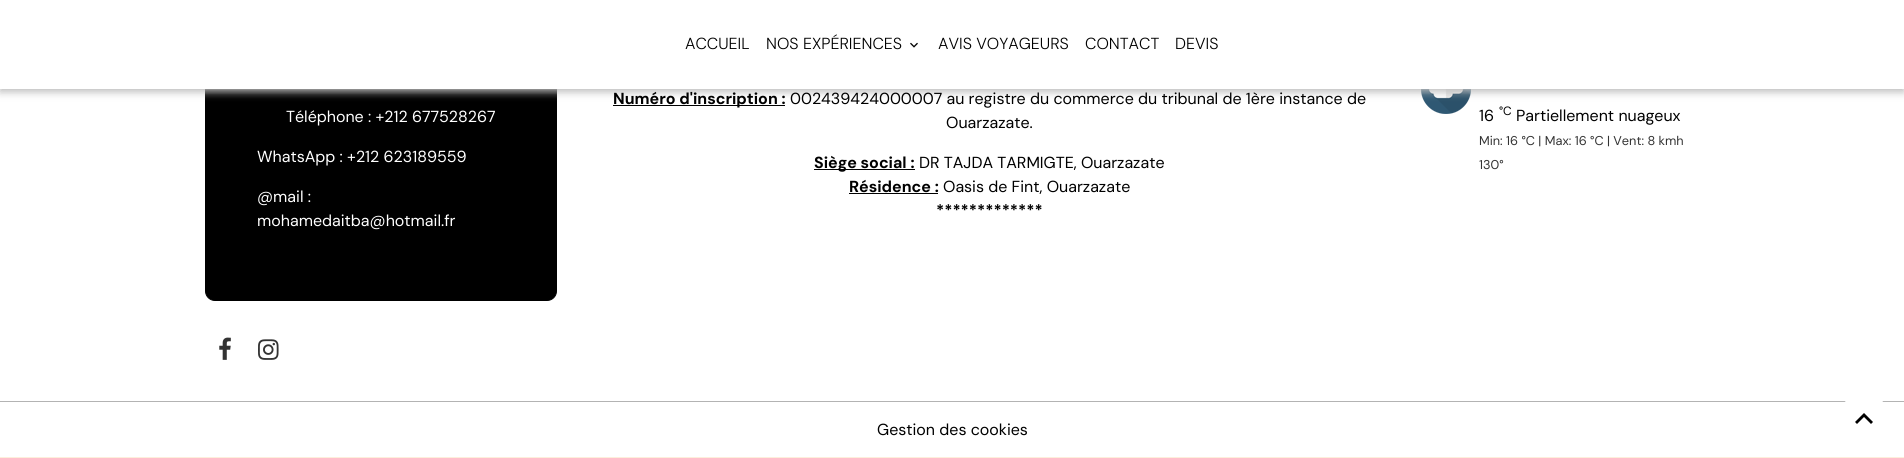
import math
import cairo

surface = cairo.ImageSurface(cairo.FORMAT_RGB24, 1904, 458)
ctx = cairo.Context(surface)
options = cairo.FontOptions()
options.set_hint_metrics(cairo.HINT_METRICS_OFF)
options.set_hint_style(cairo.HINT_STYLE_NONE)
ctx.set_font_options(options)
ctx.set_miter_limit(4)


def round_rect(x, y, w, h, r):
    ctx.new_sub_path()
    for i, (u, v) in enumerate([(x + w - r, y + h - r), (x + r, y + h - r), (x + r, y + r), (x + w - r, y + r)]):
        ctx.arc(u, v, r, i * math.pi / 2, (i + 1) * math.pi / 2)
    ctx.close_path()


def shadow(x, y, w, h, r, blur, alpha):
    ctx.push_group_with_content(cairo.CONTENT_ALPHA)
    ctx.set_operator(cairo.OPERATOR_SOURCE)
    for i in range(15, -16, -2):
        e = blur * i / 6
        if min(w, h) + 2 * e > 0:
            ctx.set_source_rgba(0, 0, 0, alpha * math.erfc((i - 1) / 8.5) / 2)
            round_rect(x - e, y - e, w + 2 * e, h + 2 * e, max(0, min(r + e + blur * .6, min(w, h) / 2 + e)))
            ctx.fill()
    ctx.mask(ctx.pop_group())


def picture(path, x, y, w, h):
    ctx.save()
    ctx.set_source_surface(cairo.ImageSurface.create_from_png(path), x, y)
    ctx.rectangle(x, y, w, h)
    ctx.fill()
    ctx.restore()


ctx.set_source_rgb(0.988, 0.937, 0.863)
ctx.paint()
ctx.set_source_rgb(1, 1, 1)
ctx.rectangle(0, 89, 1904, 368)
ctx.fill()
ctx.set_source_rgb(0, 0, 0)
round_rect(205.5, -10.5, 351, 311, 9.5)
ctx.fill_preserve()
ctx.set_line_width(1)
ctx.stroke()
picture("img2.png", 1421, 89, 50, 25)
ctx.set_source_rgb(0.737, 0.737, 0.737)
shadow(0, 3, 1904, 89, 0, 4, 1)
ctx.set_source_rgb(1, 1, 1)
ctx.rectangle(0, 0, 1904, 89)
ctx.fill()
ctx.select_font_face("DM Sans Light")
ctx.set_font_size(16)
ctx.set_source_rgb(0, 0, 0)
ctx.move_to(685, 49)
ctx.show_text("ACCUEIL")
ctx.move_to(766, 49)
ctx.show_text("NOS EXPÉRIENCES")
picture("img1.png", 910, 42, 8, 6)
ctx.move_to(938, 49)
ctx.show_text("AVIS VOYAGEURS")
ctx.move_to(1085, 49)
ctx.show_text("CONTACT")
ctx.move_to(1175, 49)
ctx.show_text("DEVIS")
ctx.select_font_face("DM Sans")
ctx.set_source_rgb(1, 1, 1)
ctx.move_to(286, 122)
ctx.show_text("Téléphone : +212 677528267")
ctx.move_to(257, 162)
ctx.show_text("WhatsApp : +212 623189559")
ctx.move_to(257, 202)
ctx.show_text("@mail :")
ctx.move_to(257, 226)
ctx.show_text("mohamedaitba@hotmail.fr")
ctx.set_source_rgb(0, 0, 0)
ctx.rectangle(613, 105, 172, 1)
ctx.fill()
ctx.select_font_face("DM Sans", cairo.FONT_SLANT_NORMAL, cairo.FONT_WEIGHT_BOLD)
ctx.move_to(613, 104)
ctx.show_text("Numéro d'inscription :")
ctx.select_font_face("DM Sans")
ctx.move_to(790, 104)
ctx.show_text("002439424000007 au registre du commerce du tribunal de 1ère instance de")
ctx.move_to(946, 128)
ctx.show_text("Ouarzazate.")
ctx.rectangle(814, 169, 101, 1)
ctx.fill()
ctx.select_font_face("DM Sans", cairo.FONT_SLANT_NORMAL, cairo.FONT_WEIGHT_BOLD)
ctx.move_to(814, 168)
ctx.show_text("Siège social :")
ctx.select_font_face("DM Sans")
ctx.move_to(919, 168)
ctx.show_text("DR TAJDA TARMIGTE, Ouarzazate")
ctx.select_font_face("DM Sans", cairo.FONT_SLANT_NORMAL, cairo.FONT_WEIGHT_BOLD)
ctx.move_to(849, 192)
ctx.show_text("Résidence :")
ctx.rectangle(849, 193, 89, 1)
ctx.fill()
ctx.select_font_face("DM Sans")
ctx.move_to(943, 192)
ctx.show_text("Oasis de Fint, Ouarzazate")
ctx.select_font_face("DM Sans", cairo.FONT_SLANT_NORMAL, cairo.FONT_WEIGHT_BOLD)
ctx.move_to(936, 216)
ctx.show_text("*************")
ctx.select_font_face("DM Sans")
ctx.move_to(1479, 121)
ctx.show_text("16")
ctx.set_font_size(12)
ctx.move_to(1499, 115)
ctx.show_text("°C")
ctx.set_font_size(16)
ctx.move_to(1516, 121)
ctx.show_text("Partiellement nuageux")
ctx.set_font_size(12.75)
ctx.set_source_rgb(0.2, 0.2, 0.2)
ctx.move_to(1479, 145)
ctx.show_text("Min: 16 °C | Max: 16 °C | Vent: 8 kmh")
ctx.move_to(1479, 169)
ctx.show_text("130°")
picture("img3.png", 219, 337, 12, 23)
picture("img4.png", 258, 339, 21, 21)
ctx.set_source_rgb(0.702, 0.702, 0.702)
ctx.rectangle(0, 401, 1904, 1)
ctx.fill()
ctx.set_font_size(16)
ctx.set_source_rgb(0, 0, 0)
ctx.move_to(877, 435)
ctx.show_text("Gestion des cookies")
ctx.set_source_rgb(1, 1, 1)
ctx.new_path()
ctx.arc(1864, 418, 25, 0, 2 * math.pi)
ctx.fill()
ctx.set_source_rgb(0, 0, 0)
ctx.new_path()
ctx.move_to(1864, 413)
ctx.line_to(1873, 422)
ctx.line_to(1871, 424)
ctx.line_to(1864, 417)
ctx.line_to(1857, 424)
ctx.line_to(1855, 422)
ctx.close_path()
ctx.fill()
surface.write_to_png("page.png")
